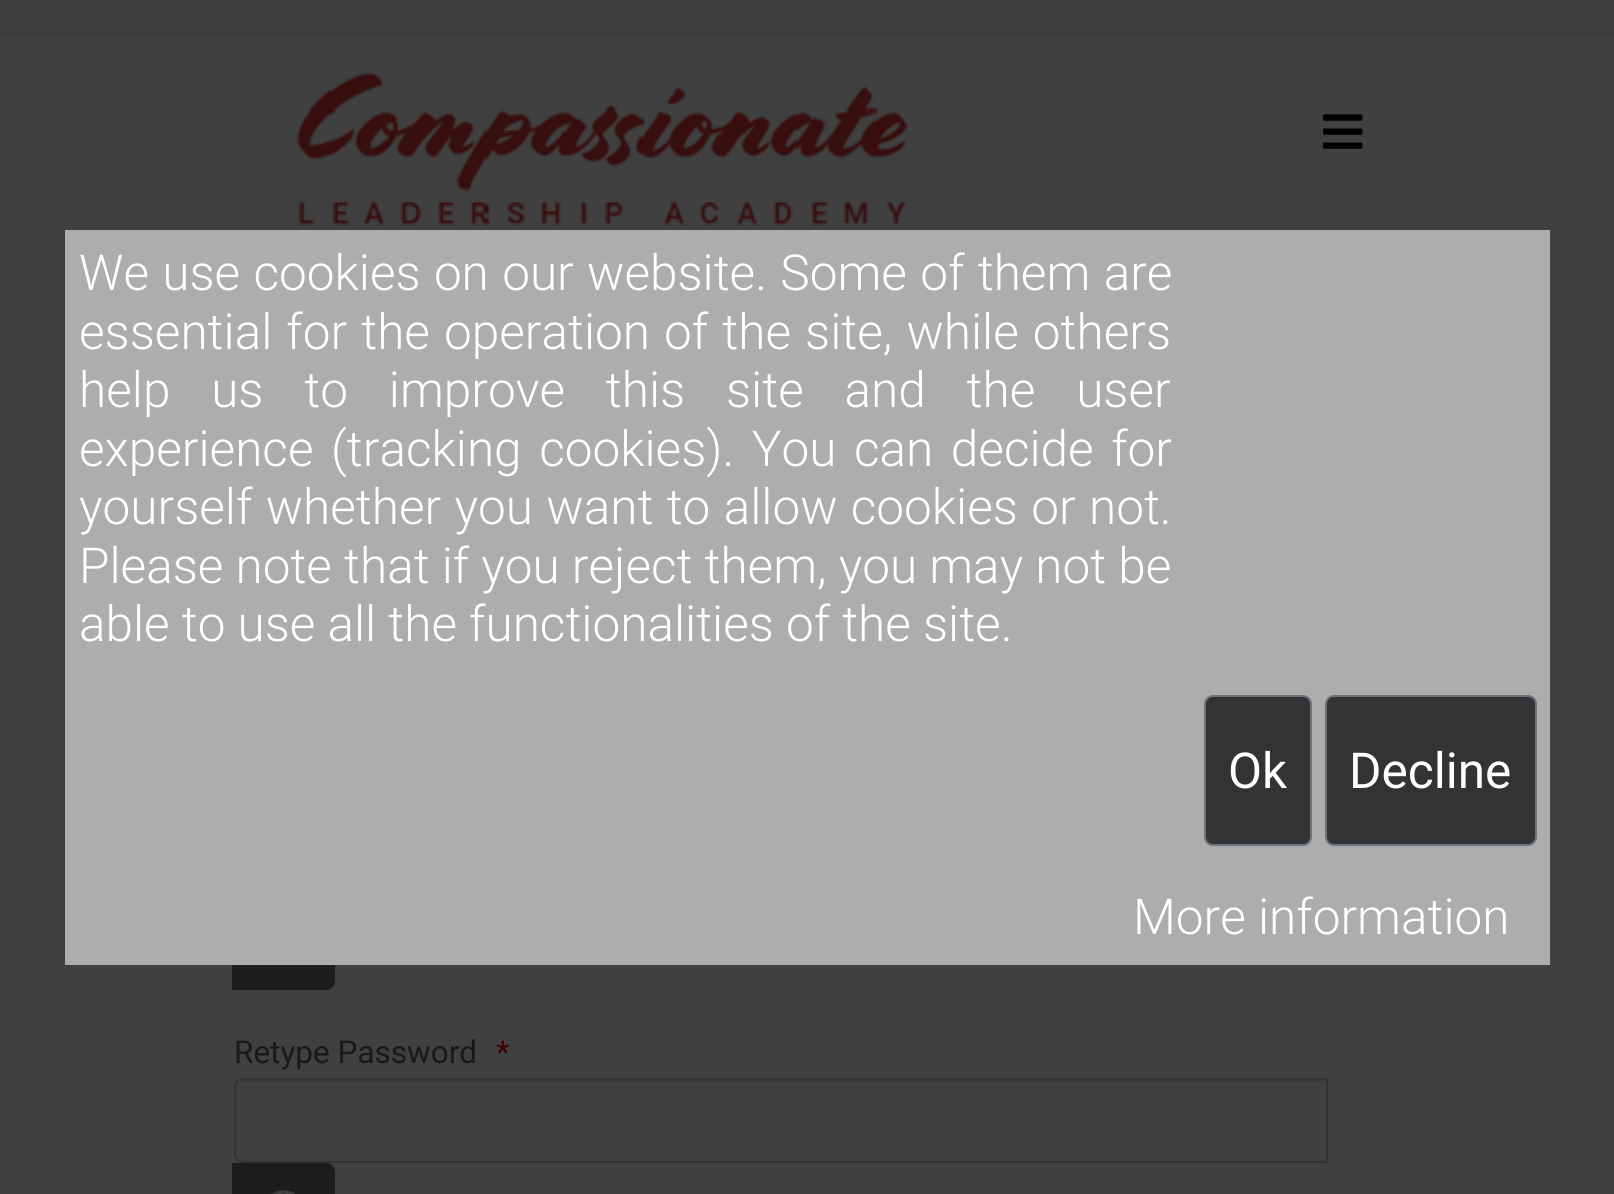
import math
import cairo

surface = cairo.ImageSurface(cairo.FORMAT_RGB24, 1614, 1194)
ctx = cairo.Context(surface)
options = cairo.FontOptions()
options.set_hint_metrics(cairo.HINT_METRICS_OFF)
options.set_hint_style(cairo.HINT_STYLE_NONE)
ctx.set_font_options(options)
ctx.set_miter_limit(4)


def spaced_text(x, y, s, letter, word):
    ctx.move_to(x, y)
    for ch in s:
        ctx.show_text(ch)
        ctx.rel_move_to(letter + word * (ch == ' '), 0)


def round_rect(x, y, w, h, r):
    ctx.new_sub_path()
    for i, (u, v) in enumerate([(x + w - r, y + h - r), (x + r, y + h - r), (x + r, y + r), (x + w - r, y + r)]):
        ctx.arc(u, v, r, i * math.pi / 2, (i + 1) * math.pi / 2)
    ctx.close_path()


def picture(path, x, y, w, h):
    ctx.save()
    ctx.set_source_surface(cairo.ImageSurface.create_from_png(path), x, y)
    ctx.rectangle(x, y, w, h)
    ctx.fill()
    ctx.restore()


ctx.set_source_rgb(0.251, 0.251, 0.251)
ctx.paint()
ctx.set_source_rgb(0.106, 0.114, 0.122)
ctx.new_path()
ctx.move_to(233, 906)
ctx.line_to(326, 906)
ctx.curve_to(330.5, 906, 334, 909.5, 334, 914)
ctx.line_to(334, 981)
ctx.curve_to(334, 985.5, 330.5, 989, 326, 989)
ctx.line_to(233, 989)
ctx.close_path()
ctx.fill_preserve()
ctx.stroke()
ctx.set_source_rgb(0.678, 0.678, 0.678)
ctx.rectangle(65, 230, 1485, 735)
ctx.fill()
ctx.select_font_face("Roboto Light")
ctx.set_font_size(49.5)
ctx.set_source_rgb(1, 1, 1)
spaced_text(79, 290, "We use cookies on our website. Some of them are", 0, 1.25)
spaced_text(79, 349, "essential for the operation of the site, while others", 0, 2)
spaced_text(79, 407, "help us to improve this site and the user", 0, 28.75)
spaced_text(79, 466, "experience (tracking cookies). You can decide for", 0, 5.5)
spaced_text(79, 524, "yourself whether you want to allow cookies or not.", 0, 1.25)
ctx.move_to(79, 583)
ctx.show_text("Please note that if you reject them, you may not be")
ctx.move_to(79, 641)
ctx.show_text("able to use all the functionalities of the site.")
ctx.set_source_rgb(0.2, 0.2, 0.2)
round_rect(1205, 696, 106, 149, 8)
ctx.fill_preserve()
ctx.set_source_rgb(0.424, 0.459, 0.49)
ctx.stroke()
ctx.select_font_face("Roboto")
ctx.set_source_rgb(1, 1, 1)
ctx.move_to(1228, 788)
ctx.show_text("Ok")
ctx.set_source_rgb(0.2, 0.2, 0.2)
round_rect(1326, 696, 210, 149, 8)
ctx.fill_preserve()
ctx.set_source_rgb(0.424, 0.459, 0.49)
ctx.stroke()
ctx.set_source_rgb(1, 1, 1)
ctx.move_to(1349, 788)
ctx.show_text("Decline")
ctx.select_font_face("Roboto Light")
ctx.move_to(1133, 934)
ctx.show_text("More information")
ctx.set_source_rgb(0.239, 0.239, 0.239)
ctx.rectangle(0, 0, 1614, 36)
ctx.fill()
picture("img1.png", 296, 71, 612, 155)
picture("img2.png", 1323, 114, 40, 35)
ctx.select_font_face("Roboto")
ctx.set_font_size(31.5)
ctx.set_source_rgb(0.098, 0.098, 0.098)
ctx.move_to(234, 1063)
ctx.show_text("Retype Password")
ctx.set_source_rgb(0.251, 0, 0)
ctx.move_to(496, 1063)
ctx.show_text("*")
ctx.set_source_rgb(0.231, 0.231, 0.231)
ctx.new_path()
ctx.move_to(243, 1082)
ctx.line_to(1325, 1082)
ctx.line_to(1325, 1080)
ctx.line_to(243, 1080)
ctx.curve_to(238, 1080, 236, 1085, 236, 1089)
ctx.curve_to(236, 1085, 239, 1082, 243, 1082)
ctx.close_path()
ctx.fill()
ctx.new_path()
ctx.move_to(243, 1079)
ctx.line_to(1327, 1079)
ctx.line_to(1327, 1162)
ctx.line_to(243, 1162)
ctx.curve_to(238.5, 1162, 235, 1158.5, 235, 1154)
ctx.line_to(235, 1087)
ctx.curve_to(235, 1082.5, 238.5, 1079, 243, 1079)
ctx.close_path()
ctx.set_source_rgb(0.2, 0.2, 0.2)
ctx.stroke()
ctx.set_source_rgb(0.106, 0.114, 0.122)
ctx.new_path()
ctx.move_to(233, 1164)
ctx.line_to(326, 1164)
ctx.curve_to(330.5, 1164, 334, 1167.5, 334, 1172)
ctx.line_to(334, 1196)
ctx.curve_to(334, 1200.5, 330.5, 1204, 326, 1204)
ctx.line_to(233, 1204)
ctx.close_path()
ctx.fill_preserve()
ctx.stroke()
picture("img3.png", 271, 1190, 25, 4)
surface.write_to_png("page.png")
